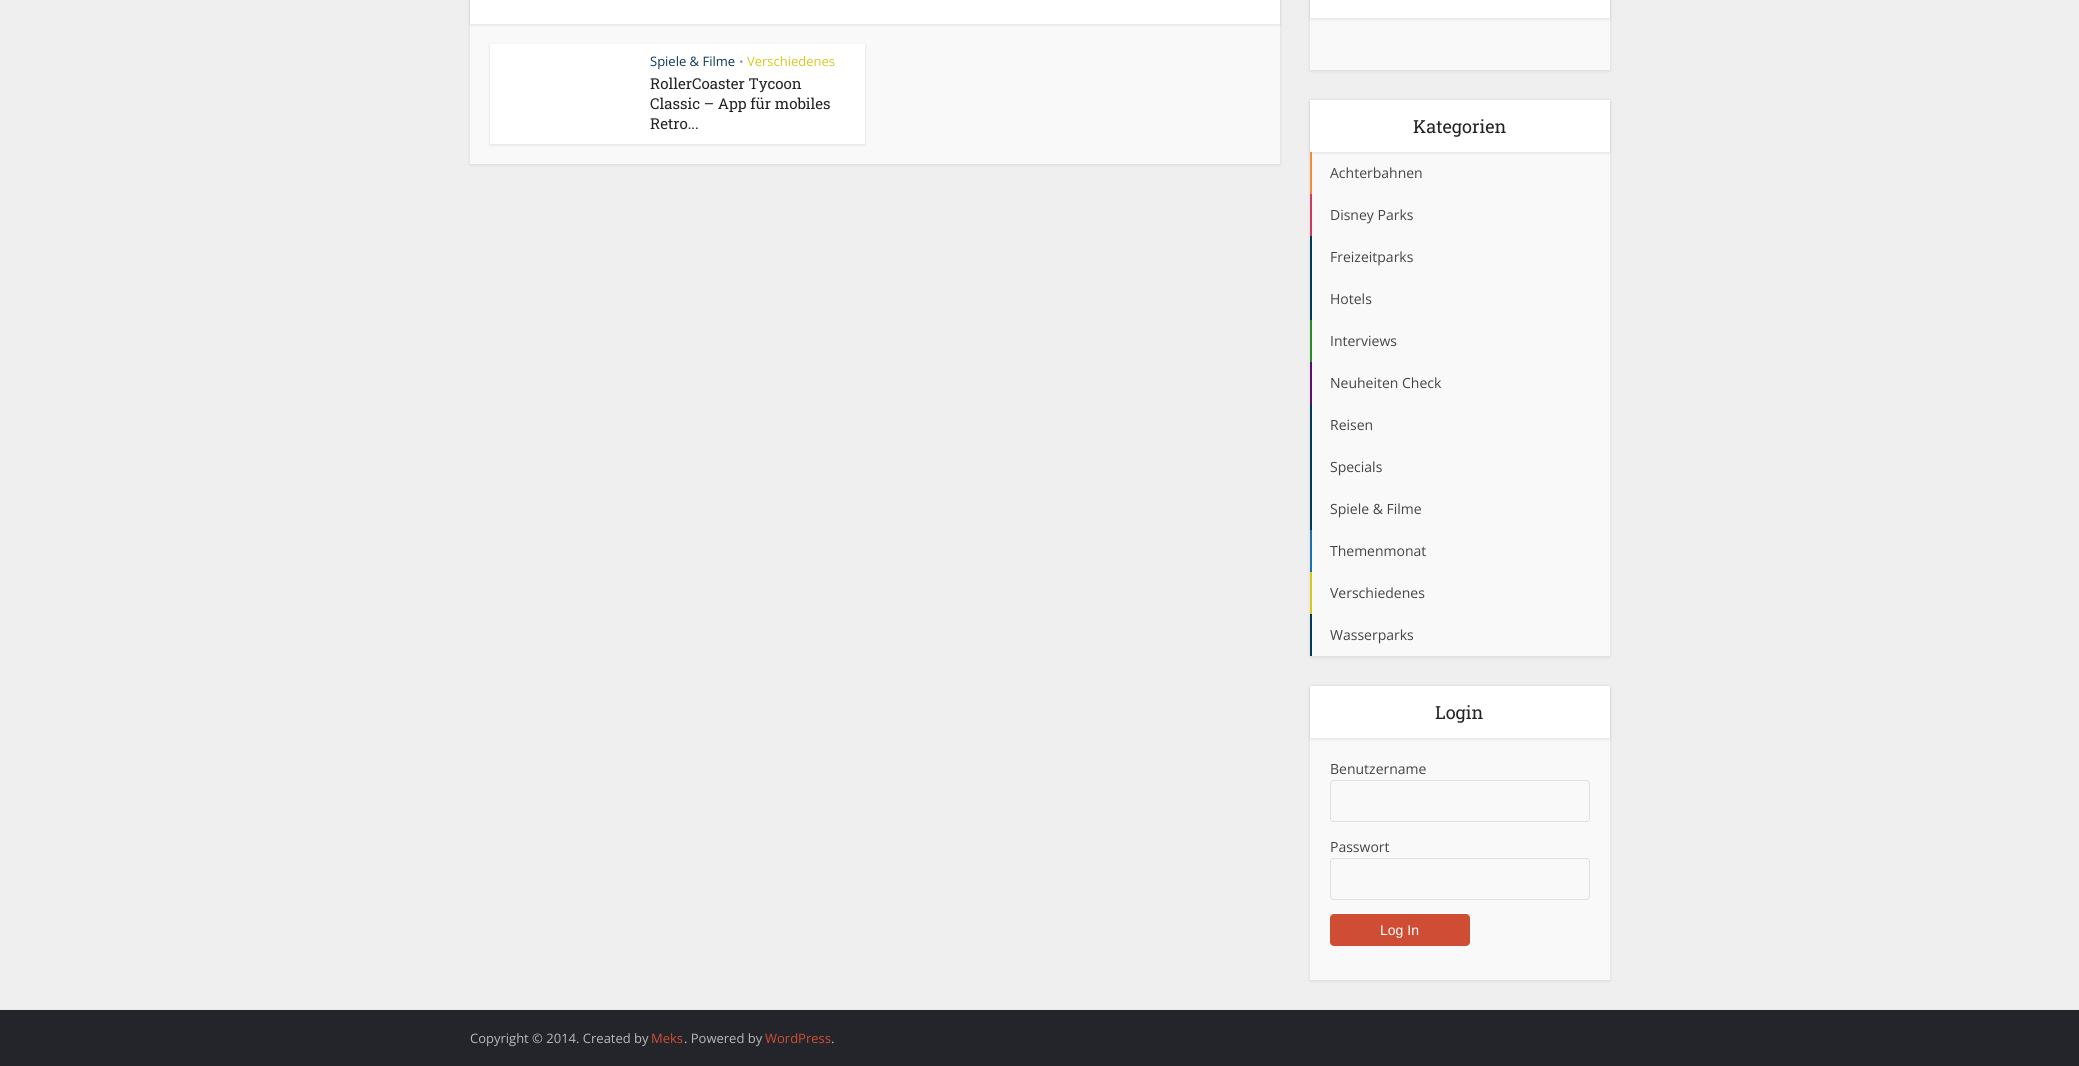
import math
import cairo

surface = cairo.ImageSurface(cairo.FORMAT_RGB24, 2079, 1066)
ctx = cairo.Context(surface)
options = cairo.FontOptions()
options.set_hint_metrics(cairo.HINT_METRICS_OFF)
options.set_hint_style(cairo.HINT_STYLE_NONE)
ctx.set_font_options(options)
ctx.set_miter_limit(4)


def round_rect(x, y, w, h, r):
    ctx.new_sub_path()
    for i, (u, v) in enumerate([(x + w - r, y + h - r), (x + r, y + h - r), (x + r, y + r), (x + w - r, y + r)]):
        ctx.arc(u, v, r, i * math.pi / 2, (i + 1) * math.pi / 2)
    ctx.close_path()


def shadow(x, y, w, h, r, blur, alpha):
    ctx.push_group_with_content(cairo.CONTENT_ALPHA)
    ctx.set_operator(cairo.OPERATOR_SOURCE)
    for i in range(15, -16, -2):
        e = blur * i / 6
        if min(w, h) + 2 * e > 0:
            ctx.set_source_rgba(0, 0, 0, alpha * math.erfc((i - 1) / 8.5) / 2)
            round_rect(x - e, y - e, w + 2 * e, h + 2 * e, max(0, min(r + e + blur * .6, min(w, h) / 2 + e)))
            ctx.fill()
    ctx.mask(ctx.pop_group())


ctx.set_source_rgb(0.937, 0.937, 0.937)
ctx.paint()
ctx.set_source_rgb(0, 0, 0)
shadow(470, -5, 810, 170, 0, 1.5, 0.1)
ctx.set_source_rgb(0.976, 0.976, 0.976)
ctx.rectangle(470, 24, 810, 140)
ctx.fill()
ctx.set_source_rgb(0, 0, 0)
shadow(470, -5, 810, 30, 0, 1.5, 0.1)
ctx.set_source_rgb(1, 1, 1)
ctx.rectangle(470, 0, 810, 24)
ctx.fill()
ctx.set_source_rgb(0, 0, 0)
shadow(490, 45, 375, 100, 0, 1.5, 0.1)
ctx.set_source_rgb(1, 1, 1)
ctx.rectangle(490, 44, 375, 100)
ctx.fill()
ctx.select_font_face("Open Sans")
ctx.set_font_size(13)
ctx.set_source_rgb(0.027, 0.22, 0.353)
ctx.move_to(650, 66)
ctx.show_text("Spiele & Filme")
ctx.set_font_size(12)
ctx.set_source_rgb(0.608, 0.608, 0.608)
ctx.move_to(739, 66)
ctx.show_text("•")
ctx.set_font_size(13)
ctx.set_source_rgb(0.839, 0.788, 0.114)
ctx.move_to(747, 66)
ctx.show_text("Verschiedenes")
ctx.select_font_face("Roboto Slab")
ctx.set_font_size(15)
ctx.set_source_rgb(0.137, 0.137, 0.137)
ctx.move_to(650, 89)
ctx.show_text("RollerCoaster Tycoon")
ctx.move_to(650, 109)
ctx.show_text("Classic – App für mobiles")
ctx.move_to(650, 129)
ctx.show_text("Retro...")
ctx.set_source_rgb(0, 0, 0)
shadow(1310, -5, 300, 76, 0, 1.5, 0.1)
ctx.set_source_rgb(0.976, 0.976, 0.976)
ctx.rectangle(1310, 18, 300, 52)
ctx.fill()
ctx.set_source_rgb(0, 0, 0)
shadow(1310, -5, 300, 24, 0, 1.5, 0.1)
ctx.set_source_rgb(1, 1, 1)
ctx.rectangle(1310, 0, 300, 18)
ctx.fill()
ctx.set_source_rgb(0, 0, 0)
shadow(1310, 101, 300, 556, 0, 1.5, 0.1)
ctx.set_source_rgb(0.976, 0.976, 0.976)
ctx.rectangle(1312, 152, 298, 504)
ctx.fill()
ctx.set_source_rgb(0, 0, 0)
shadow(1310, 101, 300, 52, 0, 1.5, 0.1)
ctx.set_source_rgb(1, 1, 1)
ctx.rectangle(1310, 100, 300, 52)
ctx.fill()
ctx.set_font_size(18)
ctx.set_source_rgb(0.137, 0.137, 0.137)
ctx.move_to(1413, 133)
ctx.show_text("Kategorien")
ctx.set_source_rgb(0.949, 0.545, 0.216)
ctx.rectangle(1310, 152, 2, 42)
ctx.fill()
ctx.select_font_face("Open Sans")
ctx.set_font_size(14)
ctx.set_source_rgb(0.267, 0.267, 0.267)
ctx.move_to(1330, 178)
ctx.show_text("Achterbahnen")
ctx.set_source_rgb(0.8, 0.231, 0.38)
ctx.rectangle(1310, 194, 2, 42)
ctx.fill()
ctx.set_source_rgb(0.267, 0.267, 0.267)
ctx.move_to(1330, 220)
ctx.show_text("Disney Parks")
ctx.set_source_rgb(0.027, 0.22, 0.353)
ctx.rectangle(1310, 236, 2, 84)
ctx.fill()
ctx.set_source_rgb(0.267, 0.267, 0.267)
ctx.move_to(1330, 262)
ctx.show_text("Freizeitparks")
ctx.move_to(1330, 304)
ctx.show_text("Hotels")
ctx.set_source_rgb(0.161, 0.537, 0.18)
ctx.rectangle(1310, 320, 2, 42)
ctx.fill()
ctx.set_source_rgb(0.267, 0.267, 0.267)
ctx.move_to(1330, 346)
ctx.show_text("Interviews")
ctx.set_source_rgb(0.349, 0.063, 0.439)
ctx.rectangle(1310, 362, 2, 42)
ctx.fill()
ctx.set_source_rgb(0.267, 0.267, 0.267)
ctx.move_to(1330, 388)
ctx.show_text("Neuheiten Check")
ctx.set_source_rgb(0.027, 0.22, 0.353)
ctx.rectangle(1310, 404, 2, 126)
ctx.fill()
ctx.set_source_rgb(0.267, 0.267, 0.267)
ctx.move_to(1330, 430)
ctx.show_text("Reisen")
ctx.move_to(1330, 472)
ctx.show_text("Specials")
ctx.move_to(1330, 514)
ctx.show_text("Spiele & Filme")
ctx.set_source_rgb(0.106, 0.439, 0.678)
ctx.rectangle(1310, 530, 2, 42)
ctx.fill()
ctx.set_source_rgb(0.267, 0.267, 0.267)
ctx.move_to(1330, 556)
ctx.show_text("Themenmonat")
ctx.set_source_rgb(0.839, 0.788, 0.114)
ctx.rectangle(1310, 572, 2, 42)
ctx.fill()
ctx.set_source_rgb(0.267, 0.267, 0.267)
ctx.move_to(1330, 598)
ctx.show_text("Verschiedenes")
ctx.set_source_rgb(0.027, 0.22, 0.353)
ctx.rectangle(1310, 614, 2, 42)
ctx.fill()
ctx.set_source_rgb(0.267, 0.267, 0.267)
ctx.move_to(1330, 640)
ctx.show_text("Wasserparks")
ctx.set_source_rgb(0, 0, 0)
shadow(1310, 687, 300, 294, 0, 1.5, 0.1)
ctx.set_source_rgb(0.976, 0.976, 0.976)
ctx.rectangle(1310, 738, 300, 242)
ctx.fill()
ctx.set_source_rgb(0, 0, 0)
shadow(1310, 687, 300, 52, 0, 1.5, 0.1)
ctx.set_source_rgb(1, 1, 1)
ctx.rectangle(1310, 686, 300, 52)
ctx.fill()
ctx.select_font_face("Roboto Slab")
ctx.set_font_size(18)
ctx.set_source_rgb(0.137, 0.137, 0.137)
ctx.move_to(1435, 719)
ctx.show_text("Login")
ctx.select_font_face("Open Sans")
ctx.set_font_size(14)
ctx.set_source_rgb(0.267, 0.267, 0.267)
ctx.move_to(1330, 774)
ctx.show_text("Benutzername")
round_rect(1330.5, 780.5, 259, 41, 3.5)
ctx.set_source_rgb(0.878, 0.878, 0.878)
ctx.set_line_width(1)
ctx.stroke()
ctx.set_source_rgb(0.267, 0.267, 0.267)
ctx.move_to(1330, 852)
ctx.show_text("Passwort")
round_rect(1330.5, 858.5, 259, 41, 3.5)
ctx.set_source_rgb(0.878, 0.878, 0.878)
ctx.stroke()
ctx.set_source_rgb(0.812, 0.302, 0.208)
round_rect(1330, 914, 140, 32, 4)
ctx.fill()
ctx.select_font_face("Liberation Sans")
ctx.set_source_rgb(1, 1, 1)
ctx.move_to(1380, 935)
ctx.show_text("Log In")
ctx.set_source_rgb(0, 0, 0)
shadow(0, 1012, 2079, 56, 0, 2, 0.2)
ctx.set_source_rgb(0.141, 0.145, 0.165)
ctx.rectangle(0, 1010, 2079, 56)
ctx.fill()
ctx.select_font_face("Open Sans")
ctx.set_font_size(13)
ctx.set_source_rgb(0.725, 0.725, 0.733)
ctx.move_to(470, 1043)
ctx.show_text("Copyright © 2014. Created by")
ctx.set_source_rgb(0.812, 0.302, 0.208)
ctx.move_to(651, 1043)
ctx.show_text("Meks")
ctx.set_source_rgb(0.725, 0.725, 0.733)
ctx.move_to(684, 1043)
ctx.show_text(". Powered by")
ctx.set_source_rgb(0.812, 0.302, 0.208)
ctx.move_to(765, 1043)
ctx.show_text("WordPress")
ctx.set_source_rgb(0.725, 0.725, 0.733)
ctx.move_to(831, 1043)
ctx.show_text(".")
surface.write_to_png("page.png")
